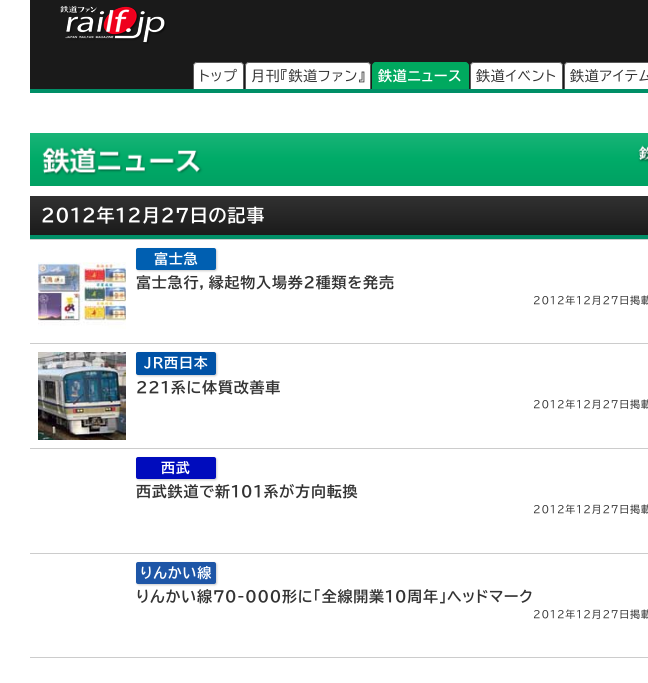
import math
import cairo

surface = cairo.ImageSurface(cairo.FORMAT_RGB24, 648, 683)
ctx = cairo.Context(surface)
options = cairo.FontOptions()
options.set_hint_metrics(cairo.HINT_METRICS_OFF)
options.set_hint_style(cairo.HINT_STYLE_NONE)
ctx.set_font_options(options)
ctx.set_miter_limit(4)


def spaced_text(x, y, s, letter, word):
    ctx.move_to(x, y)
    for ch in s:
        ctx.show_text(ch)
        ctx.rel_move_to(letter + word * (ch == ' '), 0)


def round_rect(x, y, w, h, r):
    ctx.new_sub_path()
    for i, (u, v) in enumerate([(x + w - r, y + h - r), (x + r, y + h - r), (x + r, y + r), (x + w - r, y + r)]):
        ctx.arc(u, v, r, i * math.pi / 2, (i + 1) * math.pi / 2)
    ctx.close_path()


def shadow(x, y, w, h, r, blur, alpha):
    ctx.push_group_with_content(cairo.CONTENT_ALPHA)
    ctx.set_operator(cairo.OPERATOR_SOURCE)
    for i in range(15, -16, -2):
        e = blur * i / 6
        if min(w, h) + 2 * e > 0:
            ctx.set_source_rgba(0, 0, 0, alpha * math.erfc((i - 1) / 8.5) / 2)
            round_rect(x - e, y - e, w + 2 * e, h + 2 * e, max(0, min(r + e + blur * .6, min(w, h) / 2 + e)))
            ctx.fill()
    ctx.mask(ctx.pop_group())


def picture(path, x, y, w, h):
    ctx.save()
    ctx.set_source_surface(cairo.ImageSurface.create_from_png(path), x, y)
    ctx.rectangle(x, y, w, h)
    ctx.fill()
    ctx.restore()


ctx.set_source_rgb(1, 1, 1)
ctx.paint()
ctx.set_source_rgb(0.102, 0.102, 0.102)
ctx.rectangle(30, 0, 618, 89)
ctx.fill()
ctx.set_source_rgb(0, 0.561, 0.404)
ctx.rectangle(30, 89, 618, 4)
ctx.fill()
picture("img1.png", 60, 5, 106, 39)
ctx.set_source_rgb(1, 1, 1)
ctx.new_path()
ctx.move_to(197, 62)
ctx.line_to(240, 62)
ctx.curve_to(242, 62, 244, 64, 244, 66)
ctx.line_to(244, 89)
ctx.line_to(193, 89)
ctx.line_to(193, 66)
ctx.curve_to(193, 64, 195, 62, 197, 62)
ctx.close_path()
ctx.fill()
ctx.set_source_rgba(0.2, 0.2, 0.2, 0.8)
ctx.set_fill_rule(cairo.FILL_RULE_EVEN_ODD)
ctx.new_path()
ctx.move_to(197, 62)
ctx.line_to(240, 62)
ctx.curve_to(242, 62, 244, 64, 244, 66)
ctx.line_to(244, 89)
ctx.line_to(193, 89)
ctx.line_to(193, 66)
ctx.curve_to(193, 64, 195, 62, 197, 62)
ctx.close_path()
ctx.move_to(197, 63)
ctx.line_to(240, 63)
ctx.curve_to(242, 63, 243, 64, 243, 66)
ctx.line_to(243, 89)
ctx.line_to(194, 89)
ctx.line_to(194, 66)
ctx.curve_to(194, 64, 195, 63, 197, 63)
ctx.close_path()
ctx.fill()
ctx.select_font_face("BIZ UDPGothic")
ctx.set_font_size(14)
ctx.set_source_rgb(0.2, 0.2, 0.2)
spaced_text(199, 81, "トップ", 0.8, 0)
ctx.set_source_rgb(1, 1, 1)
ctx.new_path()
ctx.move_to(249, 62)
ctx.line_to(367, 62)
ctx.curve_to(369, 62, 371, 64, 371, 66)
ctx.line_to(371, 89)
ctx.line_to(245, 89)
ctx.line_to(245, 66)
ctx.curve_to(245, 64, 247, 62, 249, 62)
ctx.close_path()
ctx.fill()
ctx.set_source_rgba(0.2, 0.2, 0.2, 0.8)
ctx.new_path()
ctx.move_to(249, 62)
ctx.line_to(367, 62)
ctx.curve_to(369, 62, 371, 64, 371, 66)
ctx.line_to(371, 89)
ctx.line_to(245, 89)
ctx.line_to(245, 66)
ctx.curve_to(245, 64, 247, 62, 249, 62)
ctx.close_path()
ctx.move_to(249, 63)
ctx.line_to(367, 63)
ctx.curve_to(369, 63, 370, 64, 370, 66)
ctx.line_to(370, 89)
ctx.line_to(246, 89)
ctx.line_to(246, 66)
ctx.curve_to(246, 64, 247, 63, 249, 63)
ctx.close_path()
ctx.fill()
ctx.set_source_rgb(0.2, 0.2, 0.2)
spaced_text(251, 81, "月刊『鉄道ファン』", 0.8, 0)
ctx.set_source_rgb(0, 0.663, 0.373)
ctx.new_path()
ctx.move_to(376, 62)
ctx.line_to(465, 62)
ctx.curve_to(467, 62, 469, 64, 469, 66)
ctx.line_to(469, 89)
ctx.line_to(372, 89)
ctx.line_to(372, 66)
ctx.curve_to(372, 64, 374, 62, 376, 62)
ctx.close_path()
ctx.fill()
ctx.set_source_rgba(0, 0.659, 0.373, 0.8)
ctx.new_path()
ctx.move_to(376, 62)
ctx.line_to(465, 62)
ctx.curve_to(467, 62, 469, 64, 469, 66)
ctx.line_to(469, 89)
ctx.line_to(372, 89)
ctx.line_to(372, 66)
ctx.curve_to(372, 64, 374, 62, 376, 62)
ctx.close_path()
ctx.move_to(376, 63)
ctx.line_to(465, 63)
ctx.curve_to(467, 63, 468, 64, 468, 66)
ctx.line_to(468, 89)
ctx.line_to(373, 89)
ctx.line_to(373, 66)
ctx.curve_to(373, 64, 374, 63, 376, 63)
ctx.close_path()
ctx.fill()
ctx.select_font_face("BIZ UDPGothic", cairo.FONT_SLANT_NORMAL, cairo.FONT_WEIGHT_BOLD)
ctx.set_source_rgb(1, 1, 1)
spaced_text(378, 81, "鉄道ニュース", 0.8, 0)
ctx.new_path()
ctx.move_to(474, 62)
ctx.line_to(559, 62)
ctx.curve_to(561, 62, 563, 64, 563, 66)
ctx.line_to(563, 89)
ctx.line_to(470, 89)
ctx.line_to(470, 66)
ctx.curve_to(470, 64, 472, 62, 474, 62)
ctx.close_path()
ctx.fill()
ctx.set_source_rgba(0.2, 0.2, 0.2, 0.8)
ctx.new_path()
ctx.move_to(474, 62)
ctx.line_to(559, 62)
ctx.curve_to(561, 62, 563, 64, 563, 66)
ctx.line_to(563, 89)
ctx.line_to(470, 89)
ctx.line_to(470, 66)
ctx.curve_to(470, 64, 472, 62, 474, 62)
ctx.close_path()
ctx.move_to(474, 63)
ctx.line_to(559, 63)
ctx.curve_to(561, 63, 562, 64, 562, 66)
ctx.line_to(562, 89)
ctx.line_to(471, 89)
ctx.line_to(471, 66)
ctx.curve_to(471, 64, 472, 63, 474, 63)
ctx.close_path()
ctx.fill()
ctx.select_font_face("BIZ UDPGothic")
ctx.set_source_rgb(0.2, 0.2, 0.2)
spaced_text(476, 81, "鉄道イベント", 0.8, 0)
ctx.set_source_rgb(1, 1, 1)
ctx.new_path()
ctx.move_to(568, 62)
ctx.line_to(648, 62)
ctx.line_to(648, 89)
ctx.line_to(564, 89)
ctx.line_to(564, 66)
ctx.curve_to(564, 64, 566, 62, 568, 62)
ctx.close_path()
ctx.fill()
ctx.set_source_rgba(0.2, 0.2, 0.2, 0.8)
ctx.new_path()
ctx.move_to(568, 62)
ctx.line_to(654, 62)
ctx.curve_to(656, 62, 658, 64, 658, 66)
ctx.line_to(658, 89)
ctx.line_to(564, 89)
ctx.line_to(564, 66)
ctx.curve_to(564, 64, 566, 62, 568, 62)
ctx.close_path()
ctx.move_to(568, 63)
ctx.line_to(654, 63)
ctx.curve_to(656, 63, 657, 64, 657, 66)
ctx.line_to(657, 89)
ctx.line_to(565, 89)
ctx.line_to(565, 66)
ctx.curve_to(565, 64, 566, 63, 568, 63)
ctx.close_path()
ctx.fill()
ctx.set_source_rgb(0.2, 0.2, 0.2)
spaced_text(570, 81, "鉄道アイテム", 0.8, 0)
picture("img2.png", 30, 133, 618, 53)
gradient = cairo.LinearGradient(376, 196, 376, 235)
gradient.add_color_stop_rgba(0, 0.192, 0.192, 0.192, 1)
gradient.add_color_stop_rgba(0.5, 0.149, 0.149, 0.149, 1)
gradient.add_color_stop_rgba(1, 0.102, 0.102, 0.102, 1)
ctx.set_source(gradient)
ctx.rectangle(30, 196, 618, 39)
ctx.fill()
ctx.set_source_rgb(0, 0.561, 0.404)
ctx.rectangle(30, 235, 618, 4)
ctx.fill()
ctx.select_font_face("BIZ UDPGothic", cairo.FONT_SLANT_NORMAL, cairo.FONT_WEIGHT_BOLD)
ctx.set_font_size(18)
ctx.set_source_rgb(1, 1, 1)
spaced_text(41, 222, "2012年12月27日の記事", 0.8, 0)
ctx.set_source_rgb(0.8, 0.8, 0.8)
ctx.rectangle(30, 239, 618, 1)
ctx.fill()
picture("img3.png", 38, 262, 88, 67)
ctx.set_source_rgb(0, 0, 0)
shadow(137, 249, 80, 22, 2, 1, 0.2)
ctx.set_source_rgb(0, 0.373, 0.694)
round_rect(136, 248, 80, 22, 2)
ctx.fill()
ctx.set_font_size(14)
ctx.set_source_rgb(1, 1, 1)
spaced_text(154, 264, "富士急", 0.8, 0)
ctx.set_font_size(15)
ctx.set_source_rgb(0.2, 0.2, 0.2)
spaced_text(136, 288, "富士急行，縁起物入場券2種類を発売", 0.8, 0)
ctx.select_font_face("BIZ UDPGothic")
ctx.set_font_size(10)
spaced_text(533, 304, "2012年12月27日掲載", 0.8, 0)
ctx.set_source_rgb(0.8, 0.8, 0.8)
ctx.rectangle(30, 343, 618, 1)
ctx.fill()
picture("img4.png", 38, 352, 88, 88)
ctx.set_source_rgb(0, 0, 0)
shadow(137, 353, 80, 23, 2, 1, 0.2)
ctx.set_source_rgb(0, 0.322, 0.651)
round_rect(136, 352, 80, 23, 2)
ctx.fill()
ctx.select_font_face("BIZ UDPGothic", cairo.FONT_SLANT_NORMAL, cairo.FONT_WEIGHT_BOLD)
ctx.set_font_size(14)
ctx.set_source_rgb(1, 1, 1)
spaced_text(144, 368, "JR西日本", 0.8, 0)
ctx.set_font_size(15)
ctx.set_source_rgb(0.2, 0.2, 0.2)
spaced_text(136, 393, "221系に体質改善車", 0.8, 0)
ctx.select_font_face("BIZ UDPGothic")
ctx.set_font_size(10)
spaced_text(533, 408, "2012年12月27日掲載", 0.8, 0)
ctx.set_source_rgb(0.8, 0.8, 0.8)
ctx.rectangle(30, 448, 618, 1)
ctx.fill()
ctx.set_source_rgb(0, 0, 0)
shadow(137, 458, 80, 22, 2, 1, 0.2)
ctx.set_source_rgb(0, 0.047, 0.741)
round_rect(136, 457, 80, 22, 2)
ctx.fill()
ctx.select_font_face("BIZ UDPGothic", cairo.FONT_SLANT_NORMAL, cairo.FONT_WEIGHT_BOLD)
ctx.set_font_size(14)
ctx.set_source_rgb(1, 1, 1)
spaced_text(161, 473, "西武", 0.8, 0)
ctx.set_font_size(15)
ctx.set_source_rgb(0.2, 0.2, 0.2)
spaced_text(136, 497, "西武鉄道で新101系が方向転換", 0.8, 0)
ctx.select_font_face("BIZ UDPGothic")
ctx.set_font_size(10)
spaced_text(533, 513, "2012年12月27日掲載", 0.8, 0)
ctx.set_source_rgb(0.8, 0.8, 0.8)
ctx.rectangle(30, 553, 618, 1)
ctx.fill()
ctx.set_source_rgb(0, 0, 0)
shadow(137, 563, 80, 22, 2, 1, 0.2)
ctx.set_source_rgb(0.118, 0.337, 0.655)
round_rect(136, 562, 80, 22, 2)
ctx.fill()
ctx.select_font_face("BIZ UDPGothic", cairo.FONT_SLANT_NORMAL, cairo.FONT_WEIGHT_BOLD)
ctx.set_font_size(14)
ctx.set_source_rgb(1, 1, 1)
spaced_text(140, 578, "りんかい線", 0.8, 0)
ctx.set_font_size(15)
ctx.set_source_rgb(0.2, 0.2, 0.2)
spaced_text(136, 602, "りんかい線70-000形に「全線開業10周年」ヘッドマーク", 0.8, 0)
ctx.select_font_face("BIZ UDPGothic")
ctx.set_font_size(10)
spaced_text(533, 618, "2012年12月27日掲載", 0.8, 0)
ctx.set_source_rgb(0.8, 0.8, 0.8)
ctx.rectangle(30, 657, 618, 1)
ctx.fill()
surface.write_to_png("page.png")
